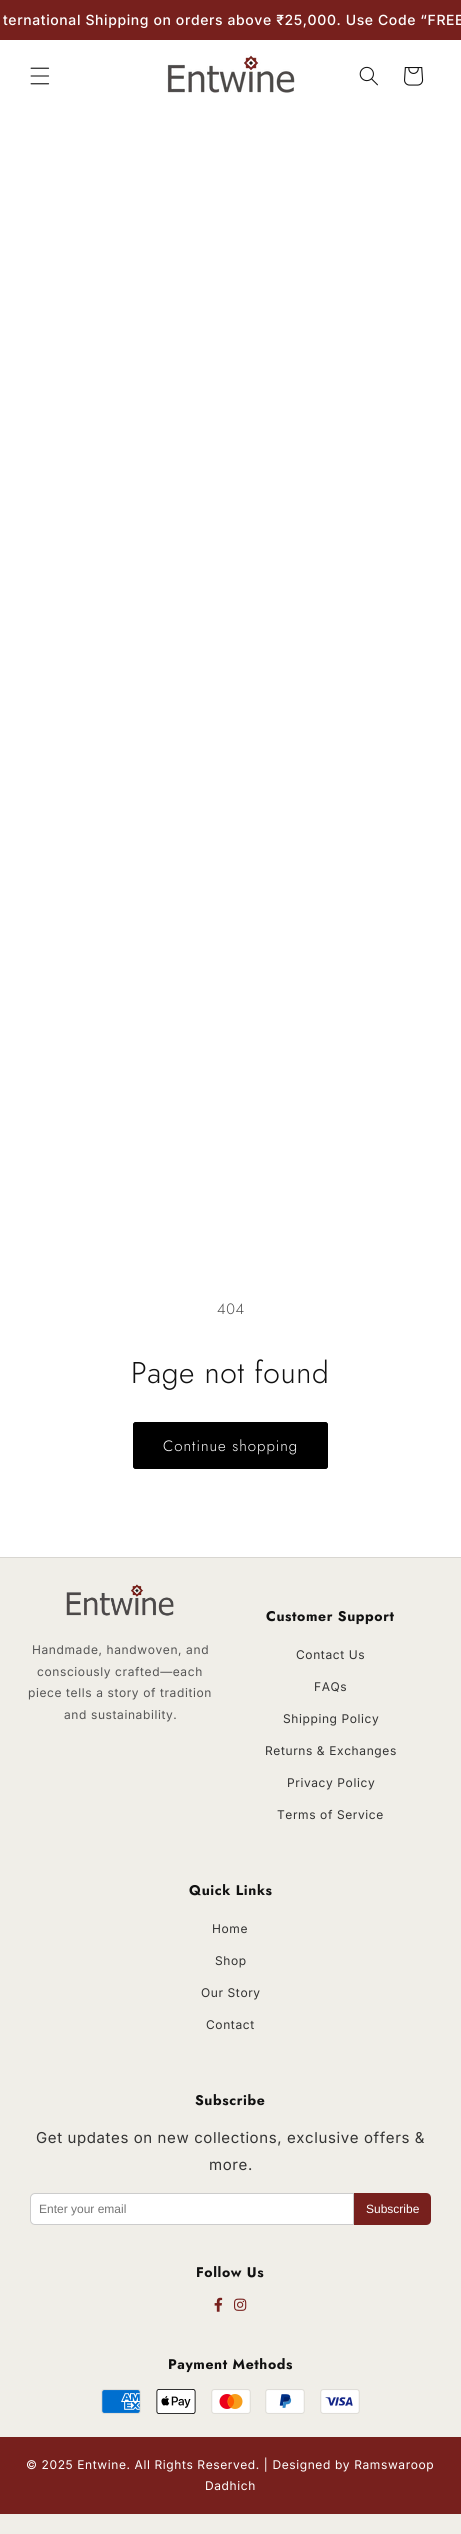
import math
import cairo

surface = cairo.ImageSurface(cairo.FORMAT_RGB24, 461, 2534)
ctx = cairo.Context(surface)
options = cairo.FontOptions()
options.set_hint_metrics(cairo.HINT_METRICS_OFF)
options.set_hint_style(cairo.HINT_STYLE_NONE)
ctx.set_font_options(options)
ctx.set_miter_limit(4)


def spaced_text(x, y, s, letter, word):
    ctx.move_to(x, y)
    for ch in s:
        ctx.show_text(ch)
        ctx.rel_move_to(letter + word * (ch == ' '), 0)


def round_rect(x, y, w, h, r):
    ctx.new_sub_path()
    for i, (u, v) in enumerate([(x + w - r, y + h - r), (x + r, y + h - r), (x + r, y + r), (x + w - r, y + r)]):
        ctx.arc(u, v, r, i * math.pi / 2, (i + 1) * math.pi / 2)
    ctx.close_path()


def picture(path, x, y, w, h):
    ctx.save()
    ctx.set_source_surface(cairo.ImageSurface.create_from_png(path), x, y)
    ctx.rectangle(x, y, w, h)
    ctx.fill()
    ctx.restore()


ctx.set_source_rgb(1, 1, 1)
ctx.paint()
ctx.set_source_rgb(0.467, 0.125, 0.114)
ctx.rectangle(0, 0, 461, 40)
ctx.fill()
ctx.select_font_face("Inter Medium")
ctx.set_font_size(14)
ctx.set_source_rgb(1, 1, 1)
spaced_text(3, 25, "ternational Shipping on orders above ₹25,000. Use Code “FREE", 0.6, 0)
picture("img1.png", 30, 67, 20, 18)
picture("img2.png", 167, 55, 128, 38)
picture("img3.png", 359, 66, 19, 20)
picture("img4.png", 404, 67, 20, 19)
ctx.select_font_face("Jost Light")
ctx.set_font_size(15)
ctx.set_source_rgb(0.302, 0.302, 0.302)
spaced_text(217, 1314, "404", 0.6, 0)
ctx.set_font_size(30)
ctx.set_source_rgb(0.067, 0.067, 0.067)
spaced_text(131, 1383, "Page not found", 0.6, 0)
ctx.set_source_rgb(0, 0, 0)
round_rect(133, 1422, 195, 47, 3)
ctx.fill()
round_rect(133.5, 1422.5, 194, 46, 2.5)
ctx.set_line_width(1)
ctx.stroke()
ctx.set_font_size(15)
ctx.set_source_rgb(1, 1, 1)
spaced_text(163, 1451, "Continue shopping", 1, 0)
ctx.set_source_rgb(0.941, 0.933, 0.91)
ctx.rectangle(0, 1558, 461, 976)
ctx.fill()
ctx.set_source_rgb(0.847, 0.839, 0.82)
ctx.rectangle(0, 1557, 461, 1)
ctx.fill()
picture("img5.png", 66, 1584, 108, 32)
ctx.select_font_face("Inter")
ctx.set_font_size(12)
ctx.set_source_rgb(0.333, 0.333, 0.333)
spaced_text(32, 1654, "Handmade, handwoven, and", 0.6, 0)
spaced_text(37, 1676, "consciously crafted—each", 0.6, 0)
spaced_text(28, 1697, "piece tells a story of tradition", 0.6, 0)
spaced_text(64, 1719, "and sustainability.", 0.6, 0)
ctx.select_font_face("Jost", cairo.FONT_SLANT_NORMAL, cairo.FONT_WEIGHT_BOLD)
ctx.set_font_size(14)
ctx.set_source_rgb(0.067, 0.067, 0.067)
spaced_text(266, 1621, "Customer Support", 0.6, 0)
ctx.select_font_face("Inter")
ctx.set_font_size(12)
ctx.set_source_rgb(0.2, 0.2, 0.2)
spaced_text(296, 1659, "Contact Us", 0.6, 0)
spaced_text(314, 1691, "FAQs", 0.6, 0)
spaced_text(283, 1723, "Shipping Policy", 0.6, 0)
spaced_text(265, 1755, "Returns & Exchanges", 0.6, 0)
spaced_text(287, 1787, "Privacy Policy", 0.6, 0)
spaced_text(277, 1819, "Terms of Service", 0.6, 0)
ctx.select_font_face("Jost", cairo.FONT_SLANT_NORMAL, cairo.FONT_WEIGHT_BOLD)
ctx.set_font_size(14)
ctx.set_source_rgb(0.067, 0.067, 0.067)
spaced_text(189, 1895, "Quick Links", 0.6, 0)
ctx.select_font_face("Inter")
ctx.set_font_size(12)
ctx.set_source_rgb(0.2, 0.2, 0.2)
spaced_text(212, 1933, "Home", 0.6, 0)
spaced_text(215, 1965, "Shop", 0.6, 0)
spaced_text(201, 1997, "Our Story", 0.6, 0)
spaced_text(206, 2029, "Contact", 0.6, 0)
ctx.select_font_face("Jost", cairo.FONT_SLANT_NORMAL, cairo.FONT_WEIGHT_BOLD)
ctx.set_font_size(14)
ctx.set_source_rgb(0.067, 0.067, 0.067)
spaced_text(195, 2105, "Subscribe", 0.6, 0)
ctx.select_font_face("Inter")
ctx.set_font_size(15)
ctx.set_source_rgb(0.2, 0.2, 0.2)
spaced_text(36, 2143, "Get updates on new collections, exclusive offers &", 0.6, 0)
spaced_text(209, 2170, "more.", 0.6, 0)
ctx.set_source_rgb(1, 1, 1)
ctx.new_path()
ctx.move_to(35, 2193.5)
ctx.line_to(353.5, 2193.5)
ctx.line_to(353.5, 2224.5)
ctx.line_to(35, 2224.5)
ctx.curve_to(32.5, 2224.5, 30.5, 2222.5, 30.5, 2220)
ctx.line_to(30.5, 2198)
ctx.curve_to(30.5, 2195.5, 32.5, 2193.5, 35, 2193.5)
ctx.close_path()
ctx.fill_preserve()
ctx.set_source_rgb(0.8, 0.8, 0.8)
ctx.stroke()
ctx.select_font_face("Liberation Sans")
ctx.set_font_size(12)
ctx.set_source_rgb(0.459, 0.459, 0.459)
ctx.move_to(39, 2213)
ctx.show_text("Enter your email")
ctx.set_source_rgb(0.467, 0.125, 0.114)
ctx.new_path()
ctx.move_to(354, 2193)
ctx.line_to(426, 2193)
ctx.curve_to(429, 2193, 431, 2195, 431, 2198)
ctx.line_to(431, 2220)
ctx.curve_to(431, 2223, 429, 2225, 426, 2225)
ctx.line_to(354, 2225)
ctx.close_path()
ctx.fill()
ctx.set_source_rgb(1, 1, 1)
ctx.move_to(366, 2213)
ctx.show_text("Subscribe")
ctx.select_font_face("Jost", cairo.FONT_SLANT_NORMAL, cairo.FONT_WEIGHT_BOLD)
ctx.set_font_size(14)
ctx.set_source_rgb(0.067, 0.067, 0.067)
spaced_text(196, 2277, "Follow Us", 0.6, 0)
picture("img6.png", 214, 2297, 9, 15)
picture("img7.png", 234, 2298, 13, 13)
spaced_text(168, 2369, "Payment Methods", 0.6, 0)
picture("img8.png", 101, 2389, 40, 25)
picture("img9.png", 156, 2389, 40, 25)
picture("img10.png", 211, 2389, 40, 25)
picture("img11.png", 265, 2389, 40, 25)
picture("img12.png", 320, 2389, 40, 25)
ctx.set_source_rgb(0.467, 0.125, 0.114)
ctx.rectangle(0, 2437, 461, 77)
ctx.fill()
ctx.select_font_face("Inter")
ctx.set_font_size(12)
ctx.set_source_rgb(1, 1, 1)
spaced_text(26, 2469, "© 2025 Entwine. All Rights Reserved. | Designed by Ramswaroop", 0.6, 0)
spaced_text(205, 2490, "Dadhich", 0.6, 0)
surface.write_to_png("page.png")
